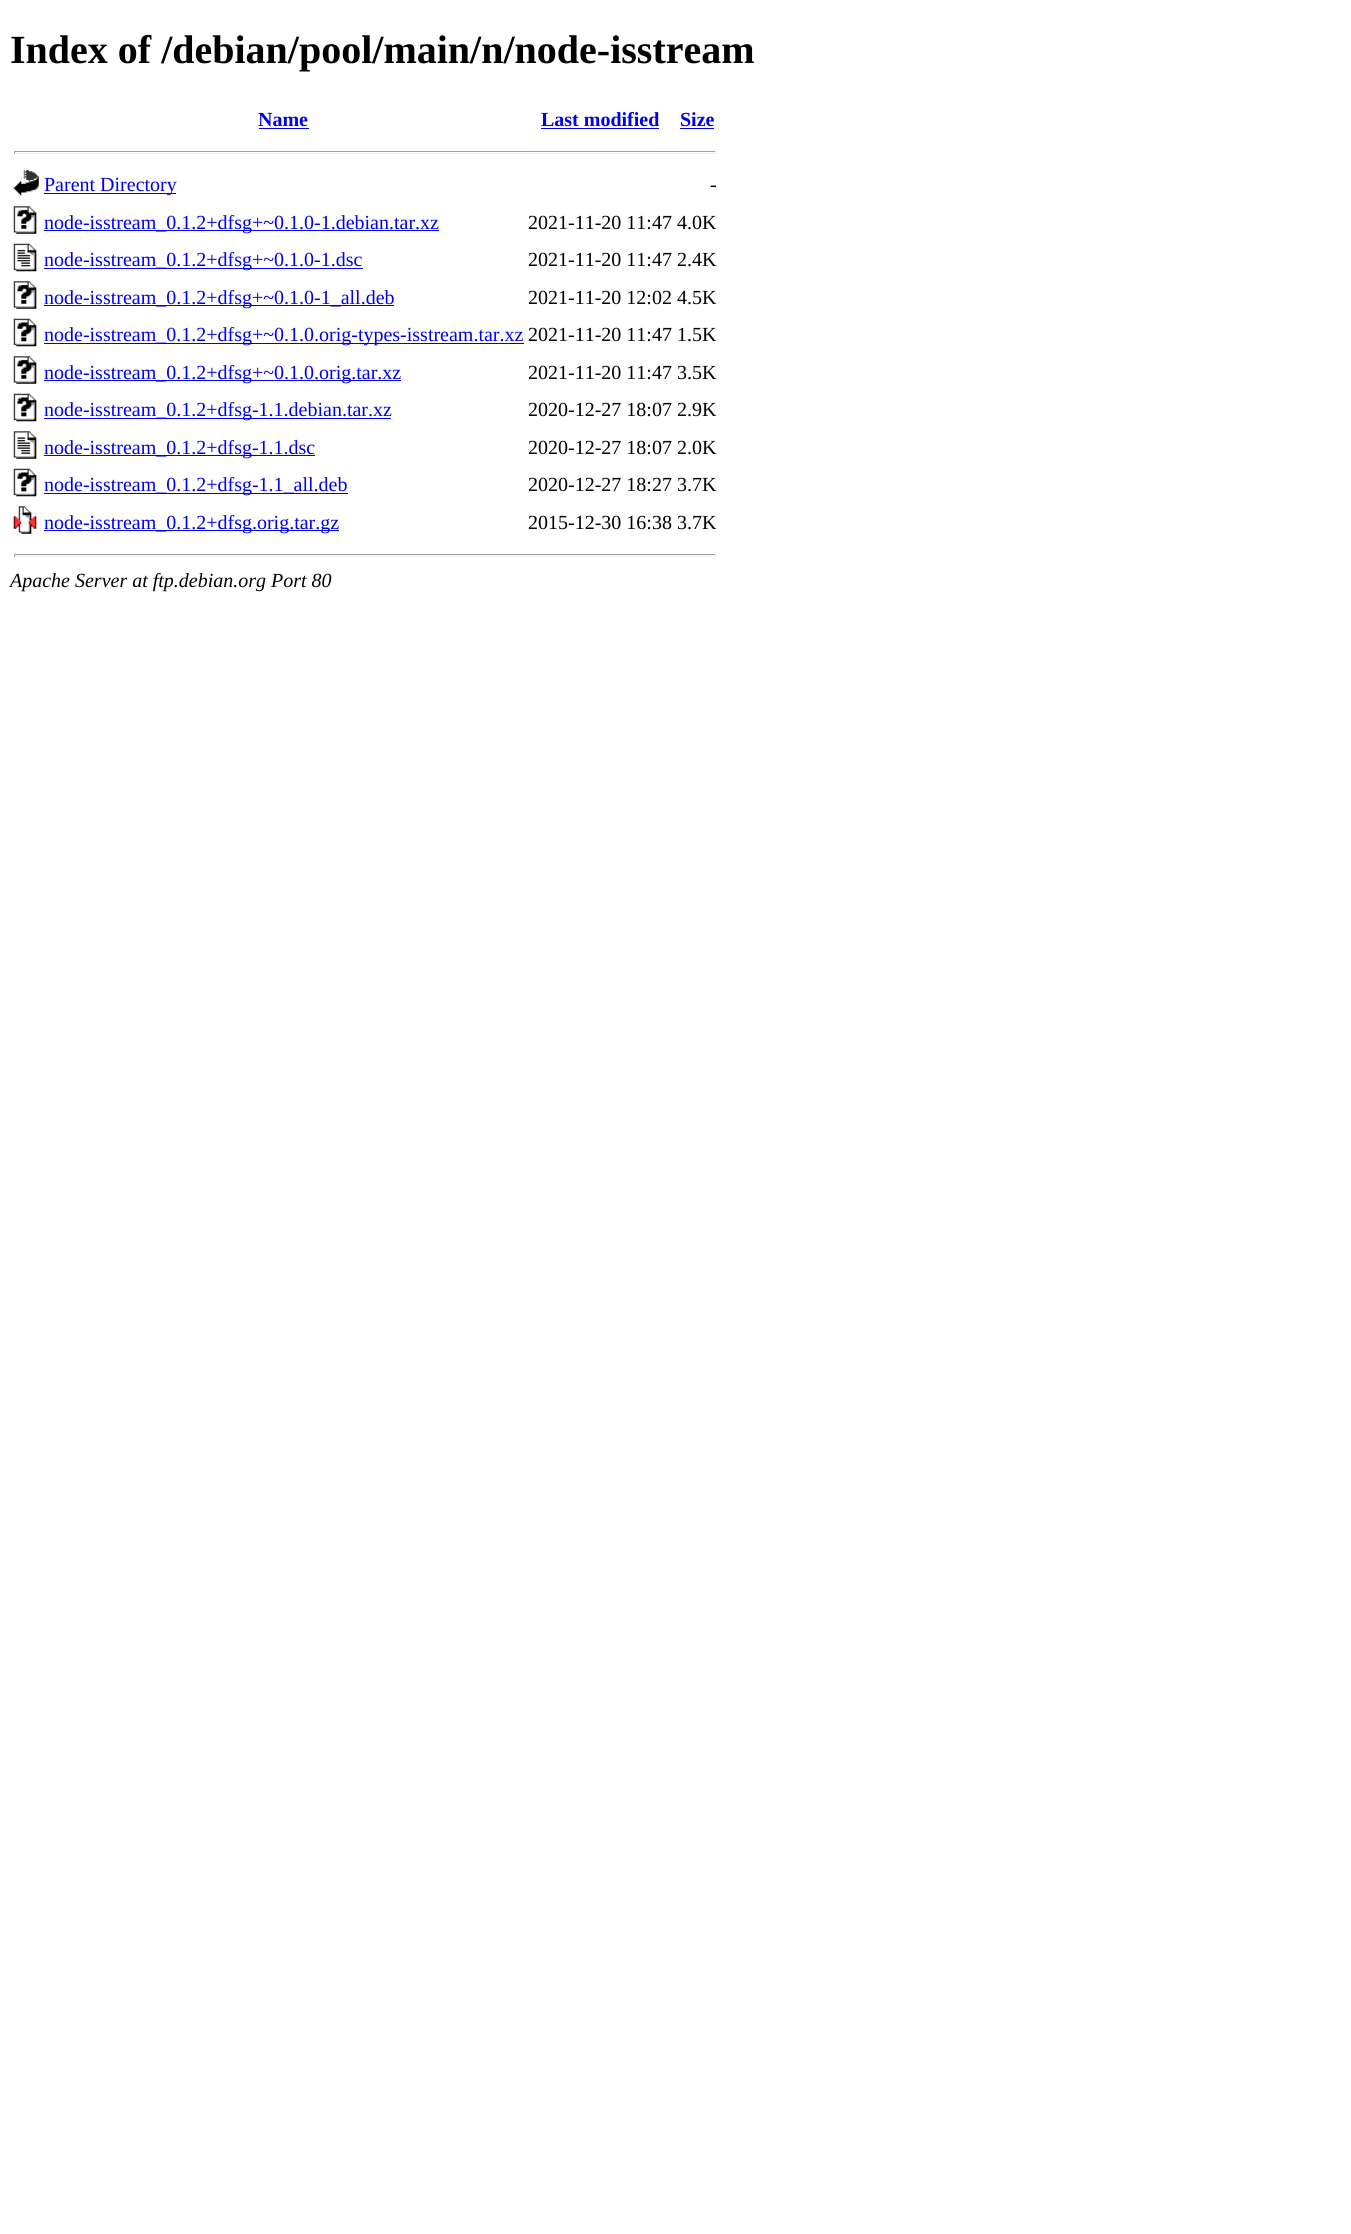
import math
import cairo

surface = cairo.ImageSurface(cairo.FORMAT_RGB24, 1351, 2234)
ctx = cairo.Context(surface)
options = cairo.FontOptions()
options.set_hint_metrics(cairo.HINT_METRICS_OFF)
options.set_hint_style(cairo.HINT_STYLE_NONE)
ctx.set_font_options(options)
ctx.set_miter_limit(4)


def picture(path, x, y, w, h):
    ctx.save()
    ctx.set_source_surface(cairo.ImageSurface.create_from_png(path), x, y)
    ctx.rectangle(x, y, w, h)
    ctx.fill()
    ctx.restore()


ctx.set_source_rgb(1, 1, 1)
ctx.paint()
ctx.select_font_face("Liberation Serif", cairo.FONT_SLANT_NORMAL, cairo.FONT_WEIGHT_BOLD)
ctx.set_font_size(40)
ctx.set_source_rgb(0, 0, 0)
ctx.move_to(10, 63)
ctx.show_text("Index of /debian/pool/main/n/node-isstream")
ctx.set_font_size(20)
ctx.set_source_rgb(0, 0, 0.933)
ctx.move_to(258, 126)
ctx.show_text("Name")
ctx.rectangle(259, 128, 50, 1)
ctx.fill()
ctx.move_to(541, 126)
ctx.show_text("Last modified")
ctx.rectangle(541, 128, 118, 1)
ctx.fill()
ctx.move_to(680, 126)
ctx.show_text("Size")
ctx.rectangle(680, 128, 34, 1)
ctx.fill()
ctx.set_source_rgb(0.624, 0.624, 0.624)
ctx.rectangle(14, 151, 702, 1)
ctx.fill()
ctx.set_source_rgb(0.933, 0.933, 0.933)
ctx.rectangle(715, 151, 1, 3)
ctx.fill()
ctx.rectangle(14, 153, 702, 1)
ctx.fill()
ctx.set_source_rgb(0.624, 0.624, 0.624)
ctx.rectangle(14, 151, 1, 3)
ctx.fill()
picture("img1.png", 13, 169, 26, 27)
ctx.set_source_rgb(0, 0, 0.933)
ctx.rectangle(44, 193, 132, 1)
ctx.fill()
ctx.select_font_face("Liberation Serif")
ctx.move_to(44, 191)
ctx.show_text("Parent Directory")
ctx.set_source_rgb(0, 0, 0)
ctx.move_to(710, 191)
ctx.show_text("-")
picture("img2.png", 13, 206, 24, 28)
ctx.set_source_rgb(0, 0, 0.933)
ctx.rectangle(44, 230, 395, 1)
ctx.fill()
ctx.move_to(44, 229)
ctx.show_text("node-isstream_0.1.2+dfsg+~0.1.0-1.debian.tar.xz")
ctx.set_source_rgb(0, 0, 0)
ctx.move_to(528, 229)
ctx.show_text("2021-11-20 11:47 4.0K")
picture("img3.png", 13, 243, 24, 29)
ctx.set_source_rgb(0, 0, 0.933)
ctx.rectangle(44, 268, 319, 1)
ctx.fill()
ctx.move_to(44, 266)
ctx.show_text("node-isstream_0.1.2+dfsg+~0.1.0-1.dsc")
ctx.set_source_rgb(0, 0, 0)
ctx.move_to(528, 266)
ctx.show_text("2021-11-20 11:47 2.4K")
picture("img4.png", 13, 281, 24, 28)
ctx.set_source_rgb(0, 0, 0.933)
ctx.rectangle(44, 305, 350, 1)
ctx.fill()
ctx.move_to(44, 304)
ctx.show_text("node-isstream_0.1.2+dfsg+~0.1.0-1_all.deb")
ctx.set_source_rgb(0, 0, 0)
ctx.move_to(528, 304)
ctx.show_text("2021-11-20 12:02 4.5K")
picture("img5.png", 13, 318, 24, 29)
ctx.set_source_rgb(0, 0, 0.933)
ctx.rectangle(44, 343, 480, 1)
ctx.fill()
ctx.move_to(44, 341)
ctx.show_text("node-isstream_0.1.2+dfsg+~0.1.0.orig-types-isstream.tar.xz")
ctx.set_source_rgb(0, 0, 0)
ctx.move_to(528, 341)
ctx.show_text("2021-11-20 11:47 1.5K")
picture("img2.png", 13, 356, 24, 28)
ctx.set_source_rgb(0, 0, 0.933)
ctx.rectangle(44, 380, 357, 1)
ctx.fill()
ctx.move_to(44, 379)
ctx.show_text("node-isstream_0.1.2+dfsg+~0.1.0.orig.tar.xz")
ctx.set_source_rgb(0, 0, 0)
ctx.move_to(528, 379)
ctx.show_text("2021-11-20 11:47 3.5K")
picture("img5.png", 13, 393, 24, 29)
ctx.set_source_rgb(0, 0, 0.933)
ctx.rectangle(44, 418, 347, 1)
ctx.fill()
ctx.move_to(44, 416)
ctx.show_text("node-isstream_0.1.2+dfsg-1.1.debian.tar.xz")
ctx.set_source_rgb(0, 0, 0)
ctx.move_to(528, 416)
ctx.show_text("2020-12-27 18:07 2.9K")
picture("img6.png", 13, 431, 24, 28)
ctx.set_source_rgb(0, 0, 0.933)
ctx.rectangle(44, 455, 271, 1)
ctx.fill()
ctx.move_to(44, 454)
ctx.show_text("node-isstream_0.1.2+dfsg-1.1.dsc")
ctx.set_source_rgb(0, 0, 0)
ctx.move_to(528, 454)
ctx.show_text("2020-12-27 18:07 2.0K")
picture("img5.png", 13, 468, 24, 29)
ctx.set_source_rgb(0, 0, 0.933)
ctx.rectangle(44, 493, 304, 1)
ctx.fill()
ctx.move_to(44, 491)
ctx.show_text("node-isstream_0.1.2+dfsg-1.1_all.deb")
ctx.set_source_rgb(0, 0, 0)
ctx.move_to(528, 491)
ctx.show_text("2020-12-27 18:27 3.7K")
picture("img7.png", 13, 506, 24, 28)
ctx.set_source_rgb(0, 0, 0.933)
ctx.rectangle(44, 530, 295, 1)
ctx.fill()
ctx.move_to(44, 529)
ctx.show_text("node-isstream_0.1.2+dfsg.orig.tar.gz")
ctx.set_source_rgb(0, 0, 0)
ctx.move_to(528, 529)
ctx.show_text("2015-12-30 16:38 3.7K")
ctx.set_source_rgb(0.624, 0.624, 0.624)
ctx.rectangle(14, 554, 702, 1)
ctx.fill()
ctx.set_source_rgb(0.933, 0.933, 0.933)
ctx.rectangle(715, 554, 1, 3)
ctx.fill()
ctx.rectangle(14, 555, 702, 1)
ctx.fill()
ctx.set_source_rgb(0.624, 0.624, 0.624)
ctx.rectangle(14, 554, 1, 3)
ctx.fill()
ctx.select_font_face("Liberation Serif", cairo.FONT_SLANT_ITALIC)
ctx.set_source_rgb(0, 0, 0)
ctx.move_to(10, 587)
ctx.show_text("Apache Server at ftp.debian.org Port 80")
surface.write_to_png("page.png")
